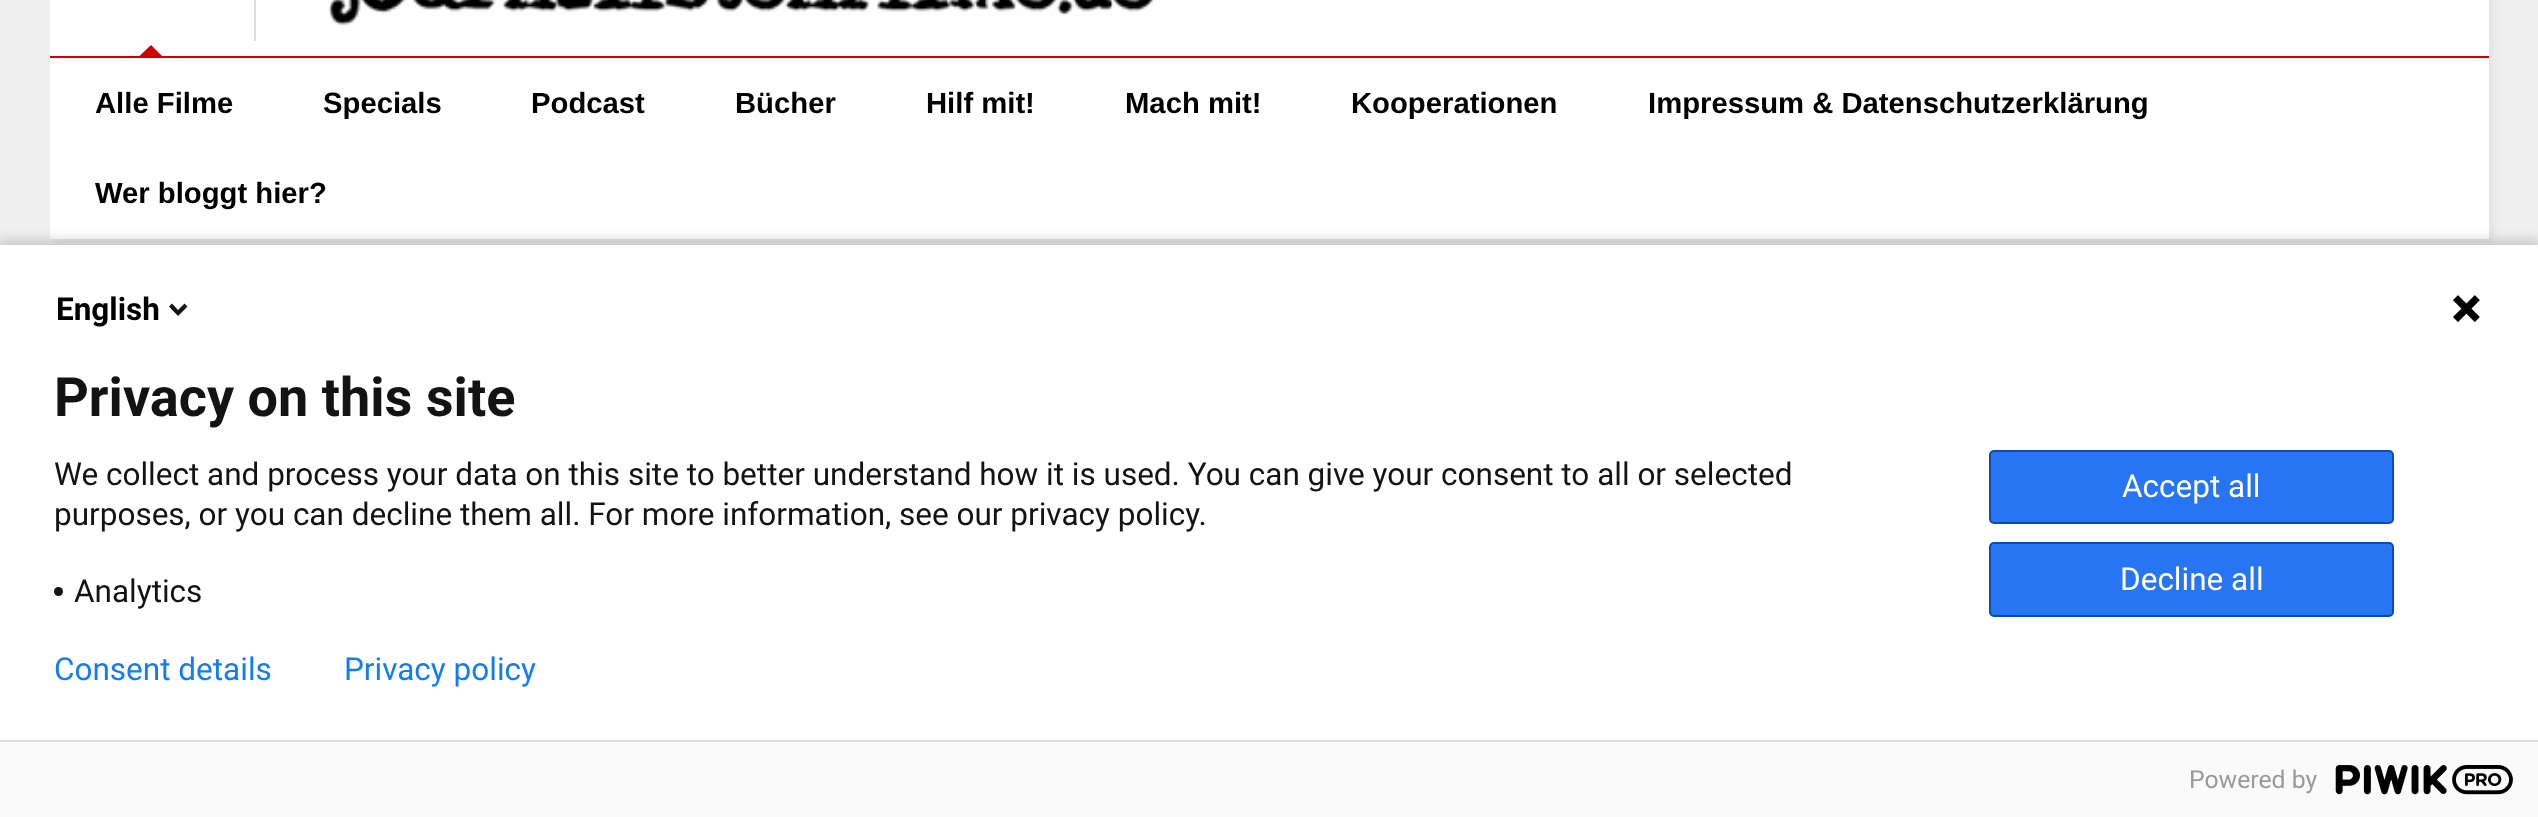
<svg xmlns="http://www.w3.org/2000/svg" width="2538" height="817">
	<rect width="100%" height="100%" fill="#EFEFEF" />
	<rect x="54" y="-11" width="2439" height="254" fill="#000000" fill-opacity="0.05" filter="blur(3.5px)" />
	<rect x="50" y="0" width="2439" height="239" fill="#FFFFFF" />
	<rect x="254" y="0" width="2" height="41" fill="#DDDDDD" />
	<image x="328" y="0" width="827" height="26" href="assets/img1.png" />
	<path d="M162 56H139.5L151 45Z" fill="#D30000" />
	<rect x="50" y="56" width="2439" height="2" fill="#D30000" />
	<g font-family="Liberation Sans" font-size="29.25" font-weight="700" fill="#000000">
		<text x="95" y="113">Alle Filme</text>
		<text x="323" y="113">Specials</text>
		<text x="531" y="113">Podcast</text>
		<text x="735" y="113">Bücher</text>
		<text x="926" y="113">Hilf mit!</text>
		<text x="1125" y="113">Mach mit!</text>
		<text x="1351" y="113">Kooperationen</text>
		<text x="1648" y="113">Impressum &amp; Datenschutzerklärung</text>
		<text x="95" y="203">Wer bloggt hier?</text>
	</g>
	<rect x="-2" y="239" width="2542" height="578" fill="#000000" fill-opacity="0.14" filter="blur(5.5px)" />
	<rect x="0" y="245" width="2538" height="495" fill="#FFFFFF" />
	<text x="56" y="320" font-family="Roboto" font-size="31.5" font-weight="700" fill="#000000">English</text>
	<path d="M178 310L184.5 303.5L187.5 306.5L178 316L169 306.5L172 303.5Z" fill="#131313" />
	<image x="2453" y="295" width="27" height="27" href="assets/img2.png" />
	<text x="54" y="416" font-family="Roboto" font-size="54" font-weight="700" fill="#131313">Privacy on this site</text>
	<g font-family="Roboto" font-size="31.5" fill="#131313">
		<text x="54" y="485">We collect and process your data on this site to better understand how it is used. You can give your consent to all or selected</text>
		<text x="54" y="525">purposes, or you can decline them all. For more information, see our privacy policy.</text>
	</g>
	<circle cx="58.5" cy="591.5" r="4.5" fill="#131313" />
	<text x="74" y="602" font-family="Roboto" font-size="31.5" fill="#131313">Analytics</text>
	<rect x="1990" y="451" width="403" height="72" rx="4" fill="#2775F2" stroke="#0B4BB3" stroke-width="2" />
	<text x="2122" y="497" font-family="Roboto" font-size="31.5" fill="#FFFFFF">Accept all</text>
	<rect x="1990" y="543" width="403" height="73" rx="4" fill="#2775F2" stroke="#0B4BB3" stroke-width="2" />
	<text x="2120" y="590" font-family="Roboto" font-size="31.5" fill="#FFFFFF">Decline all</text>
	<g font-family="Roboto" font-size="31.5" fill="#107EF1">
		<text x="54" y="680">Consent details</text>
		<text x="344" y="680">Privacy policy</text>
	</g>
	<rect x="0" y="742" width="2538" height="75" fill="#FAFAFA" />
	<rect x="0" y="740" width="2538" height="2" fill="#DDDDDD" />
	<text x="2189" y="788" font-family="Roboto" font-size="24.75" fill="#999999">Powered by</text>
	<image x="2335" y="765" width="178" height="30" href="assets/img3.png" />
</svg>
